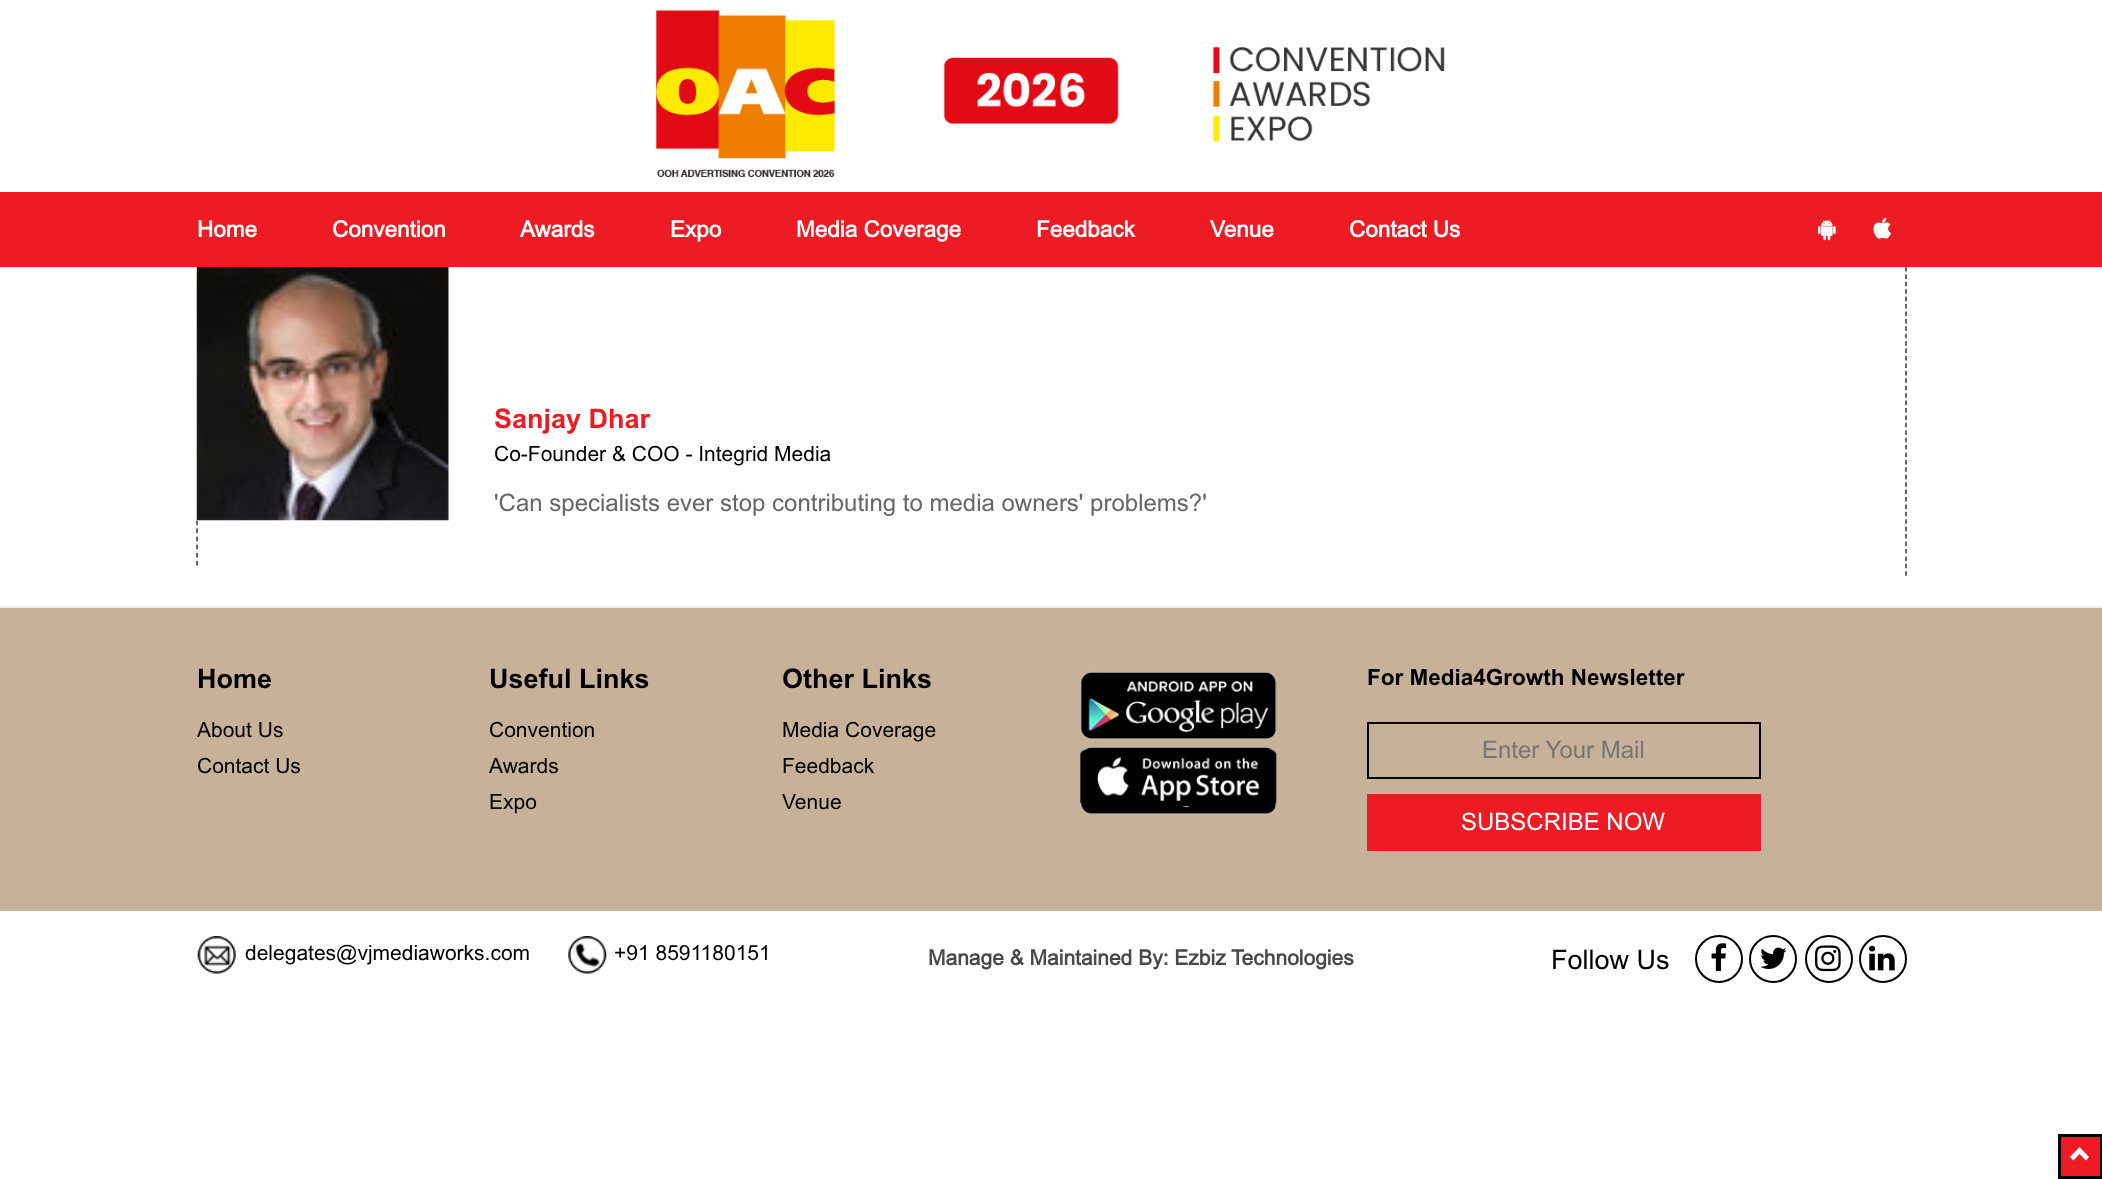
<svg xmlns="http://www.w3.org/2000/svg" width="2102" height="1179">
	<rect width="100%" height="100%" fill="#FFFFFF" />
	<image x="656" y="9" width="789" height="168" href="assets/img1.png" />
	<rect x="0" y="192" width="2102" height="75" fill="#ED1C24" />
	<g font-family="Arial" font-size="22.5" font-weight="700" fill="#FFFFFF">
		<text x="197" y="237">Home</text>
		<text x="332" y="237">Convention</text>
		<text x="520" y="237">Awards</text>
		<text x="670" y="237">Expo</text>
		<text x="796" y="237">Media Coverage</text>
		<text x="1036" y="237">Feedback</text>
		<text x="1210" y="237">Venue</text>
		<text x="1349" y="237">Contact Us</text>
	</g>
	<image x="1818" y="219" width="18" height="22" href="assets/img2.png" />
	<image x="1873" y="217" width="18" height="22" href="assets/img3.png" />
	<rect x="0" y="606" width="2102" height="2" fill="#EEEEEE" />
	<path d="M1906 267V576" fill="none" stroke="#333333" stroke-width="1.5" stroke-dasharray="4.5 2.92" />
	<path d="M197 520.5V565.5" fill="none" stroke="#333333" stroke-width="1.5" stroke-dasharray="4.5 3.6" />
	<rect x="197" y="520" width="1" height="1" fill="#FFFFFF" />
	<image x="196" y="267" width="253" height="254" href="assets/img4.png" />
	<text x="494" y="428" font-family="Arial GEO" font-size="27" font-weight="700" fill="#ED1C24">Sanjay Dhar</text>
	<text x="494" y="461" font-family="Arial" font-size="21" fill="#000000">Co-Founder &amp; COO - Integrid Media</text>
	<text x="494" y="511" font-family="Arial" font-size="24" fill="#666666">'Can specialists ever stop contributing to media owners' problems?'</text>
	<rect x="0" y="608" width="2102" height="303" fill="#C7B299" />
	<text x="197" y="688" font-family="Arial GEO" font-size="27" font-weight="700" fill="#000000">Home</text>
	<g font-family="Arial" font-size="21" fill="#000000">
		<text x="197" y="737">About Us</text>
		<text x="197" y="773">Contact Us</text>
	</g>
	<text x="489" y="688" font-family="Arial GEO" font-size="27" font-weight="700" fill="#000000">Useful Links</text>
	<g font-family="Arial" font-size="21" fill="#000000">
		<text x="489" y="737">Convention</text>
		<text x="489" y="773">Awards</text>
		<text x="489" y="809">Expo</text>
	</g>
	<text x="782" y="688" font-family="Arial GEO" font-size="27" font-weight="700" fill="#000000">Other Links</text>
	<g font-family="Arial" font-size="21" fill="#000000">
		<text x="782" y="737">Media Coverage</text>
		<text x="782" y="773">Feedback</text>
		<text x="782" y="809">Venue</text>
	</g>
	<image x="1080" y="671" width="197" height="69" href="assets/img5.png" />
	<image x="1080" y="746" width="197" height="69" href="assets/img6.png" />
	<text x="1367" y="685" font-family="Arial GEO" font-size="22.5" font-weight="700" fill="#000000">For Media4Growth Newsletter</text>
	<rect x="1368" y="723" width="392" height="55" fill="none" stroke="#000000" stroke-width="2" />
	<text x="1482" y="758" font-family="Arial" font-size="24" fill="#757575">Enter Your Mail</text>
	<rect x="1367" y="794" width="394" height="57" fill="#ED1C24" />
	<text x="1461" y="830" font-family="Arial" font-size="24" fill="#FFFFFF">SUBSCRIBE NOW</text>
	<image x="197" y="936" width="39" height="38" href="assets/img7.png" />
	<text x="245" y="960" font-family="Arial" font-size="21" fill="#000000">delegates@vjmediaworks.com</text>
	<image x="568" y="936" width="39" height="38" href="assets/img8.png" />
	<text x="614" y="960" font-family="Arial" font-size="21" fill="#000000">+91 8591180151</text>
	<text x="928" y="965" font-family="Arial" font-size="21" font-weight="700" fill="#4A4949">Manage &amp; Maintained By: Ezbiz Technologies</text>
	<text x="1551" y="969" font-family="Arial" font-size="27" fill="#000000">Follow Us</text>
	<circle cx="1719" cy="959" r="23" fill="none" stroke="#000000" stroke-width="2" />
	<image x="1711" y="943" width="16" height="29" href="assets/img9.png" />
	<circle cx="1773" cy="959" r="23" fill="none" stroke="#000000" stroke-width="2" />
	<image x="1760" y="947" width="27" height="22" href="assets/img10.png" />
	<circle cx="1829" cy="959" r="23" fill="none" stroke="#000000" stroke-width="2" />
	<image x="1815" y="945" width="26" height="27" href="assets/img11.png" />
	<circle cx="1883" cy="959" r="23" fill="none" stroke="#000000" stroke-width="2" />
	<image x="1869" y="945" width="26" height="26" href="assets/img12.png" />
	<rect x="2059.5" y="1135.5" width="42" height="42" fill="#ED1C24" stroke="#000000" stroke-width="3" />
	<path d="M2089 1157L2086 1160.5L2079.5 1154L2073.5 1160.5L2070 1157L2079.5 1147Z" fill="#FFFFFF" />
</svg>
